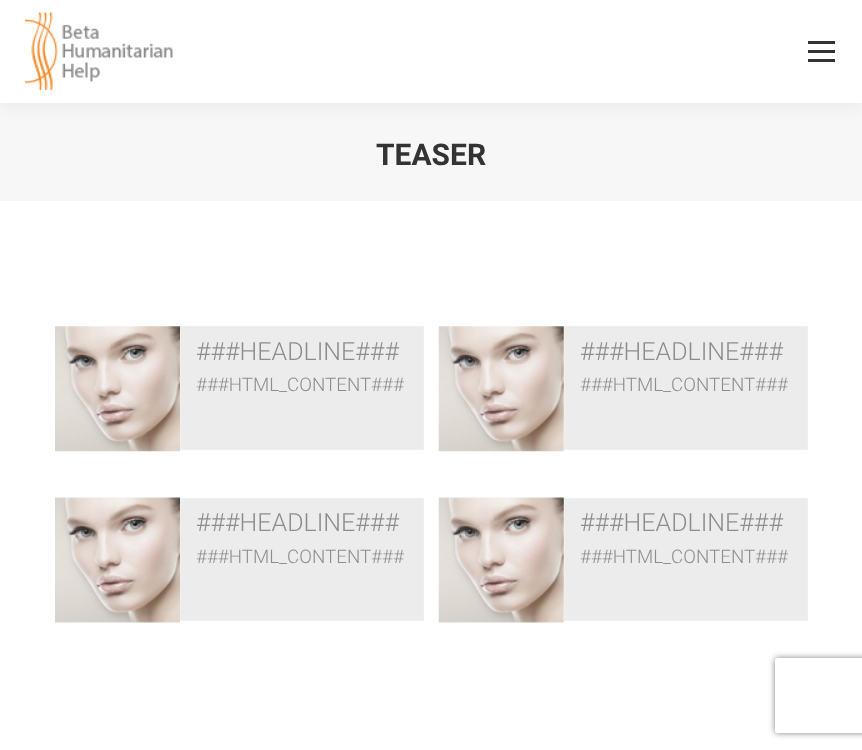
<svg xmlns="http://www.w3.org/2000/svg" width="862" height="750">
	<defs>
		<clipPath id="clip1"><path d="M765 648H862V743H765ZM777.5 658H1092.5C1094 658 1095 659 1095 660.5V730.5C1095 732 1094 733 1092.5 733H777.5C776 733 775 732 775 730.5V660.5C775 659 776 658 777.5 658Z" clip-rule="evenodd" /></clipPath>
	</defs>
	<rect width="100%" height="100%" fill="#FFFFFF" />
	<rect x="0" y="103" width="862" height="98" fill="#F7F7F7" />
	<rect x="-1" y="-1" width="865" height="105" fill="#000000" fill-opacity="0.07" filter="blur(9.5px)" />
	<rect x="0" y="0" width="862" height="103" fill="#FFFFFF" />
	<image x="25" y="12" width="148" height="78" href="assets/img1.png" />
	<rect x="808" y="41" width="27" height="3" fill="#333333" />
	<rect x="808" y="50" width="27" height="3" fill="#333333" />
	<rect x="808" y="59" width="27" height="3" fill="#333333" />
	<text x="376" y="165" font-family="Roboto" font-size="30" font-weight="700" fill="#333333">TEASER</text>
	<image x="55" y="326" width="125" height="126" href="assets/img2.png" />
	<rect x="180.5" y="326.5" width="243" height="123" fill="#ECECEC" stroke="#EFEFEF" />
	<text x="196" y="360" font-family="Roboto" font-size="25" font-weight="300" fill="#8D8D8D">###HEADLINE###</text>
	<text x="196" y="391" font-family="Roboto" font-size="18.75" font-weight="300" fill="#8D8D8D">###HTML_CONTENT###</text>
	<image x="438" y="326" width="126" height="126" href="assets/img3.png" />
	<rect x="564.5" y="326.5" width="243" height="123" fill="#ECECEC" stroke="#EFEFEF" />
	<text x="580" y="360" font-family="Roboto" font-size="25" font-weight="300" fill="#8D8D8D">###HEADLINE###</text>
	<text x="580" y="391" font-family="Roboto" font-size="18.75" font-weight="300" fill="#8D8D8D">###HTML_CONTENT###</text>
	<image x="55" y="497" width="125" height="126" href="assets/img4.png" />
	<rect x="180.5" y="498.5" width="243" height="122" fill="#ECECEC" stroke="#EFEFEF" />
	<text x="196" y="531" font-family="Roboto" font-size="25" font-weight="300" fill="#8D8D8D">###HEADLINE###</text>
	<text x="196" y="563" font-family="Roboto" font-size="18.75" font-weight="300" fill="#8D8D8D">###HTML_CONTENT###</text>
	<image x="438" y="497" width="126" height="126" href="assets/img5.png" />
	<rect x="564.5" y="498.5" width="243" height="122" fill="#ECECEC" stroke="#EFEFEF" />
	<text x="580" y="531" font-family="Roboto" font-size="25" font-weight="300" fill="#8D8D8D">###HEADLINE###</text>
	<text x="580" y="563" font-family="Roboto" font-size="18.75" font-weight="300" fill="#8D8D8D">###HTML_CONTENT###</text>
	<g clip-path="url(#clip1)">
		<rect x="775" y="658" width="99" height="75" rx="2.5" fill="#808080" filter="blur(3px)" />
	</g>
</svg>
